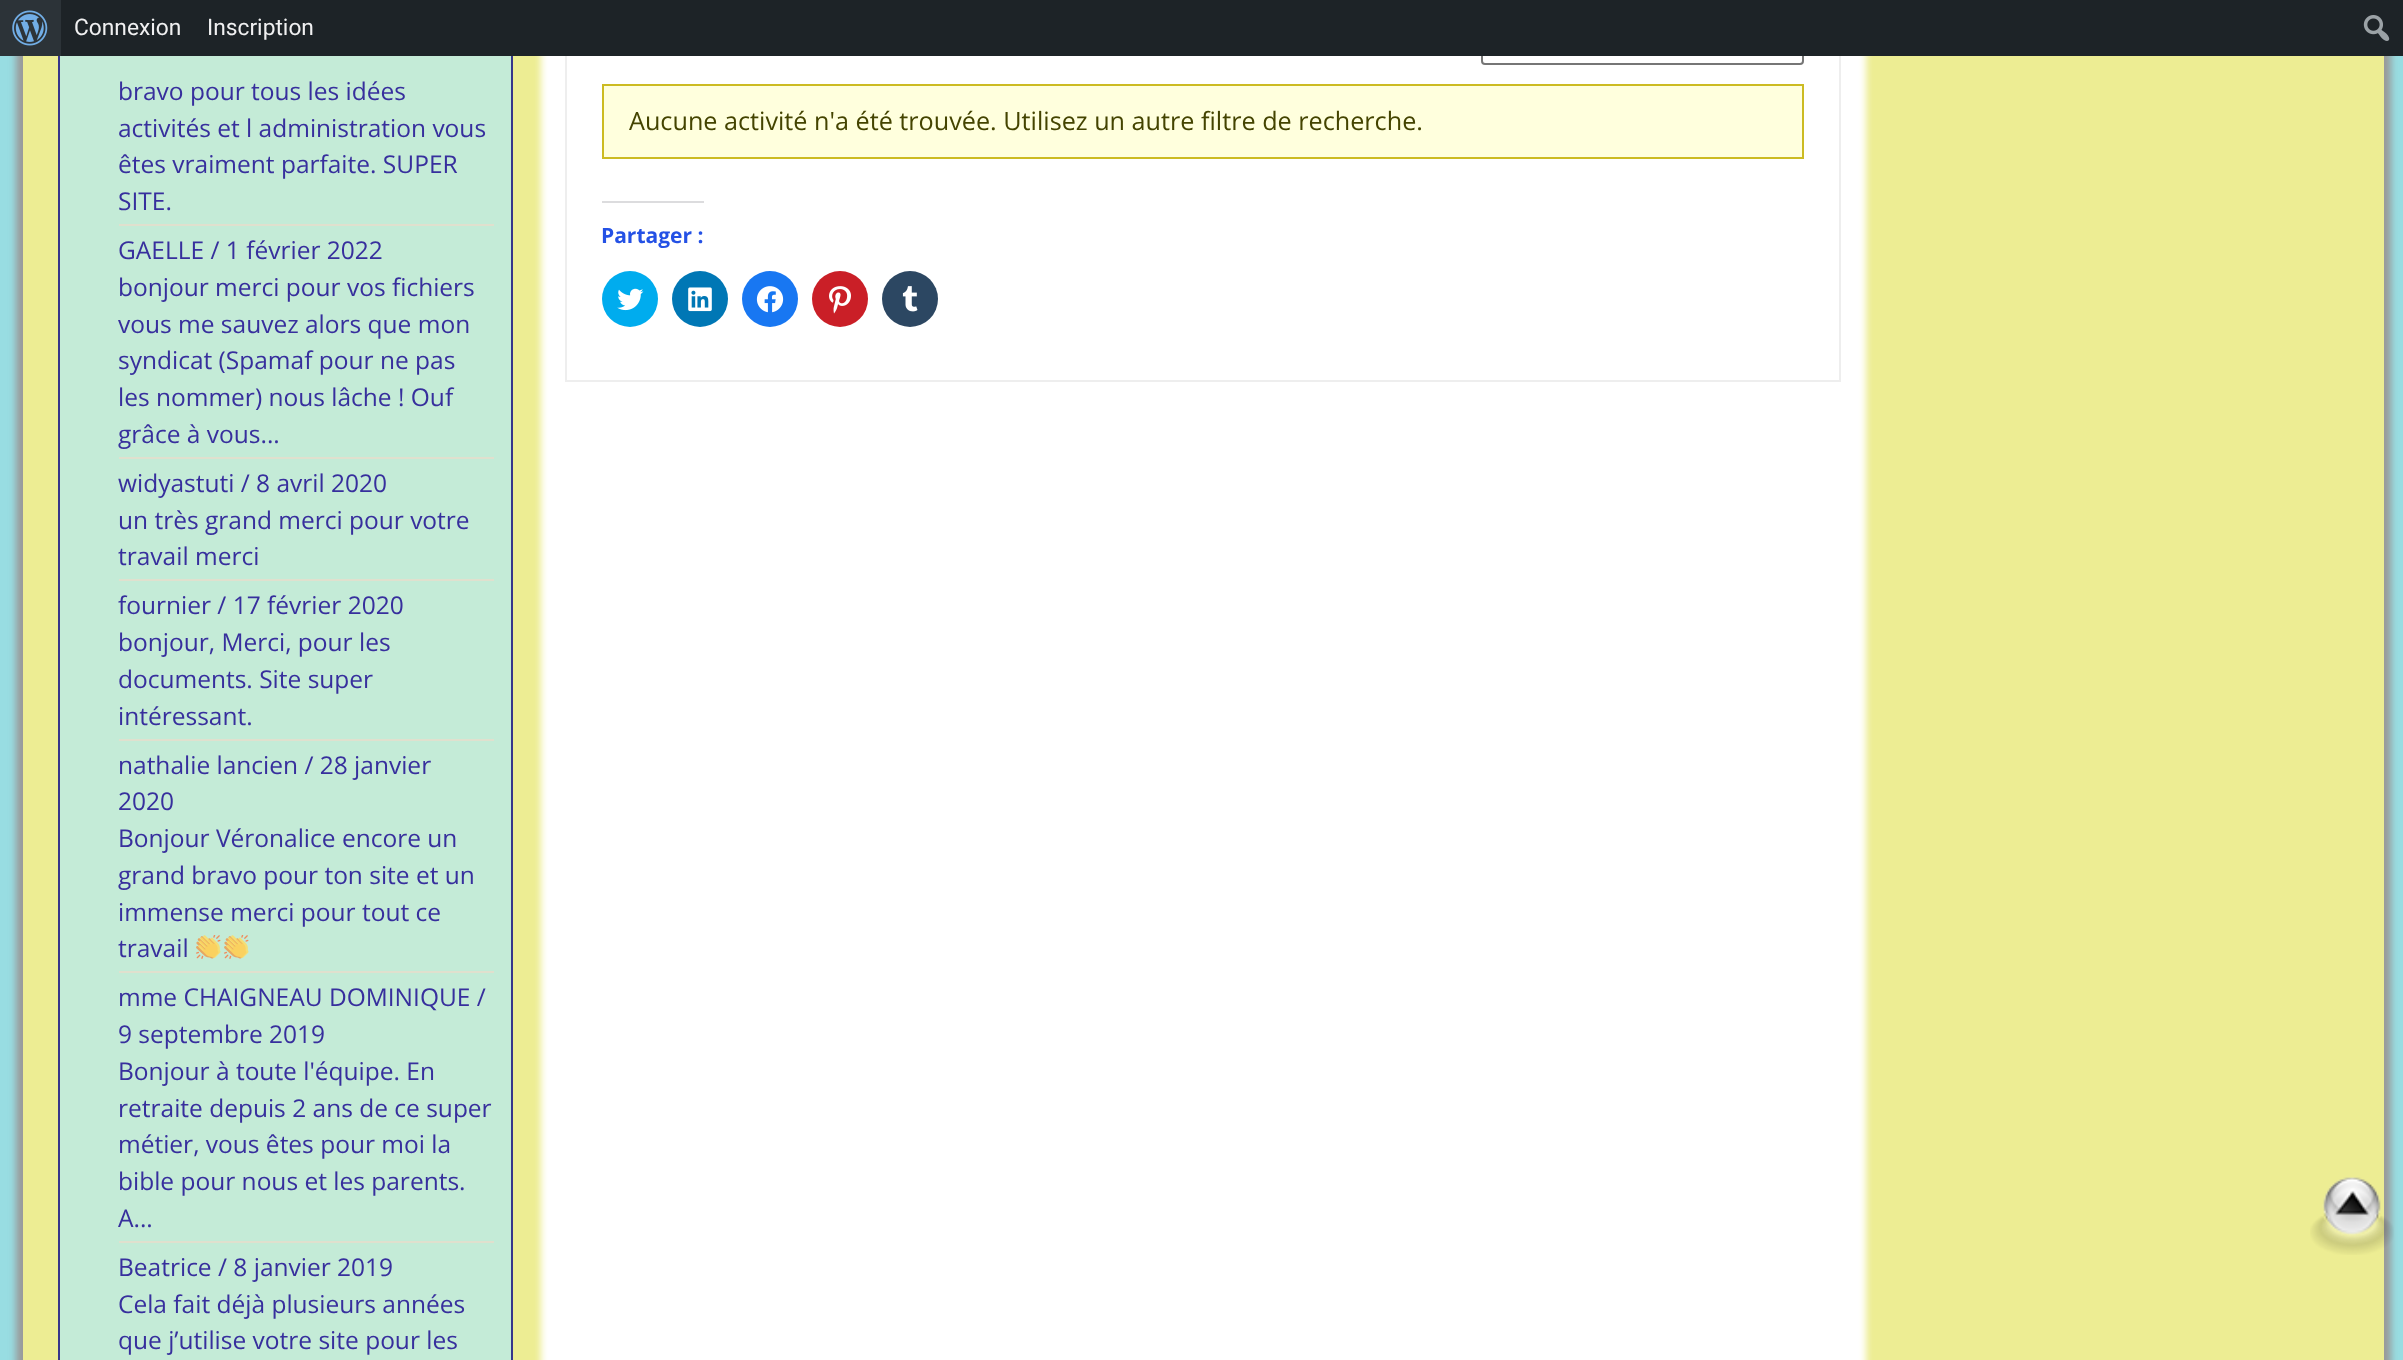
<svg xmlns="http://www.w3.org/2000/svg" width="2403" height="1360">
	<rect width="100%" height="100%" fill="#98DDE2" />
	<rect x="16" y="-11" width="2375" height="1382" fill="#999999" filter="blur(3.5px)" />
	<rect x="23" y="56" width="2361" height="1304" fill="#EDED93" />
	<rect x="60" y="56" width="451" height="1304" fill="#C4EBD7" />
	<rect x="59" y="-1" width="453" height="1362" fill="none" stroke="#37368B" stroke-width="2" />
	<rect x="541" y="-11" width="1325" height="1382" fill="#FFFFFF" filter="blur(3.5px)" />
	<rect x="566" y="-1" width="1274" height="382" fill="none" stroke="#EEEEEE" stroke-width="2" />
	<rect x="1482" y="29" width="321" height="35" rx="3" fill="none" stroke="#767676" stroke-width="2" />
	<rect x="61" y="0" width="2342" height="56" fill="#1D2327" />
	<rect x="0" y="0" width="61" height="56" fill="#2C3338" />
	<image x="12" y="10" width="36" height="36" href="assets/img1.png" />
	<g font-family="Roboto" font-size="22.75" fill="#F0F0F1">
		<text x="74" y="35">Connexion</text>
		<text x="207" y="35">Inscription</text>
	</g>
	<image x="2363" y="15" width="27" height="26" href="assets/img2.png" />
	<rect x="119" y="224" width="375" height="2" fill="#E0E0CE" />
	<g font-family="Open Sans" font-size="24.5" fill="#372F9D">
		<text x="118" y="100">bravo pour tous les idées</text>
		<text x="118" y="137">activités et l administration vous</text>
		<text x="118" y="173">êtes vraiment parfaite. SUPER</text>
		<text x="118" y="210">SITE.</text>
	</g>
	<rect x="119" y="457" width="375" height="2" fill="#E0E0CE" />
	<g font-family="Open Sans" font-size="24.5" fill="#372F9D">
		<text x="118" y="259">GAELLE / 1 février 2022</text>
		<text x="118" y="296">bonjour merci pour vos fichiers</text>
		<text x="118" y="333">vous me sauvez alors que mon</text>
		<text x="118" y="369">syndicat (Spamaf pour ne pas</text>
		<text x="118" y="406">les nommer) nous lâche ! Ouf</text>
		<text x="118" y="443">grâce à vous...</text>
	</g>
	<rect x="119" y="579" width="375" height="2" fill="#E0E0CE" />
	<g font-family="Open Sans" font-size="24.5" fill="#372F9D">
		<text x="118" y="492">widyastuti / 8 avril 2020</text>
		<text x="118" y="529">un très grand merci pour votre</text>
		<text x="118" y="565">travail merci</text>
	</g>
	<rect x="119" y="739" width="375" height="2" fill="#E0E0CE" />
	<g font-family="Open Sans" font-size="24.5" fill="#372F9D">
		<text x="118" y="614">fournier / 17 février 2020</text>
		<text x="118" y="651">bonjour, Merci, pour les</text>
		<text x="118" y="688">documents. Site super</text>
		<text x="118" y="725">intéressant.</text>
	</g>
	<rect x="119" y="971" width="375" height="2" fill="#E0E0CE" />
	<g font-family="Open Sans" font-size="24.5" fill="#372F9D">
		<text x="118" y="774">nathalie lancien / 28 janvier</text>
		<text x="118" y="810">2020</text>
		<text x="118" y="847">Bonjour Véronalice encore un</text>
		<text x="118" y="884">grand bravo pour ton site et un</text>
		<text x="118" y="921">immense merci pour tout ce</text>
		<text x="118" y="957">travail</text>
	</g>
	<image x="196" y="935" width="25" height="24" href="assets/img3.png" />
	<image x="224" y="935" width="25" height="24" href="assets/img3.png" />
	<rect x="119" y="1241" width="375" height="2" fill="#E0E0CE" />
	<g font-family="Open Sans" font-size="24.5" fill="#372F9D">
		<text x="118" y="1006">mme CHAIGNEAU DOMINIQUE /</text>
		<text x="118" y="1043">9 septembre 2019</text>
		<text x="118" y="1080">Bonjour à toute l'équipe. En</text>
		<text x="118" y="1117">retraite depuis 2 ans de ce super</text>
		<text x="118" y="1153">métier, vous êtes pour moi la</text>
		<text x="118" y="1190">bible pour nous et les parents.</text>
		<text x="118" y="1227">A...</text>
		<text x="118" y="1276">Beatrice / 8 janvier 2019</text>
		<text x="118" y="1313">Cela fait déjà plusieurs années</text>
		<text x="118" y="1349">que j’utilise votre site pour les</text>
	</g>
	<rect x="603" y="85" width="1200" height="73" fill="#FFFFDD" stroke="#CCBB22" stroke-width="2" />
	<text x="629" y="130" font-family="Open Sans" font-size="25.2" fill="#444400">Aucune activité n'a été trouvée. Utilisez un autre filtre de recherche.</text>
	<rect x="602" y="201" width="102" height="2" fill="#DCDCDE" />
	<text x="601" y="243" font-family="Open Sans" font-size="21" font-weight="700" fill="#2451E5">Partager :</text>
	<circle cx="630" cy="299" r="28" fill="#00ACEE" />
	<image x="617" y="288" width="27" height="23" href="assets/img4.png" />
	<circle cx="700" cy="299" r="28" fill="#0077B5" />
	<image x="688" y="287" width="24" height="25" href="assets/img5.png" />
	<circle cx="770" cy="299" r="28" fill="#1877F2" />
	<image x="756" y="286" width="28" height="27" href="assets/img6.png" />
	<circle cx="840" cy="299" r="28" fill="#CA1F27" />
	<image x="829" y="286" width="22" height="28" href="assets/img7.png" />
	<circle cx="910" cy="299" r="28" fill="#2C4762" />
	<image x="902" y="286" width="16" height="26" href="assets/img8.png" />
	<image x="2310" y="1177" width="84" height="78" href="assets/img9.png" />
</svg>
